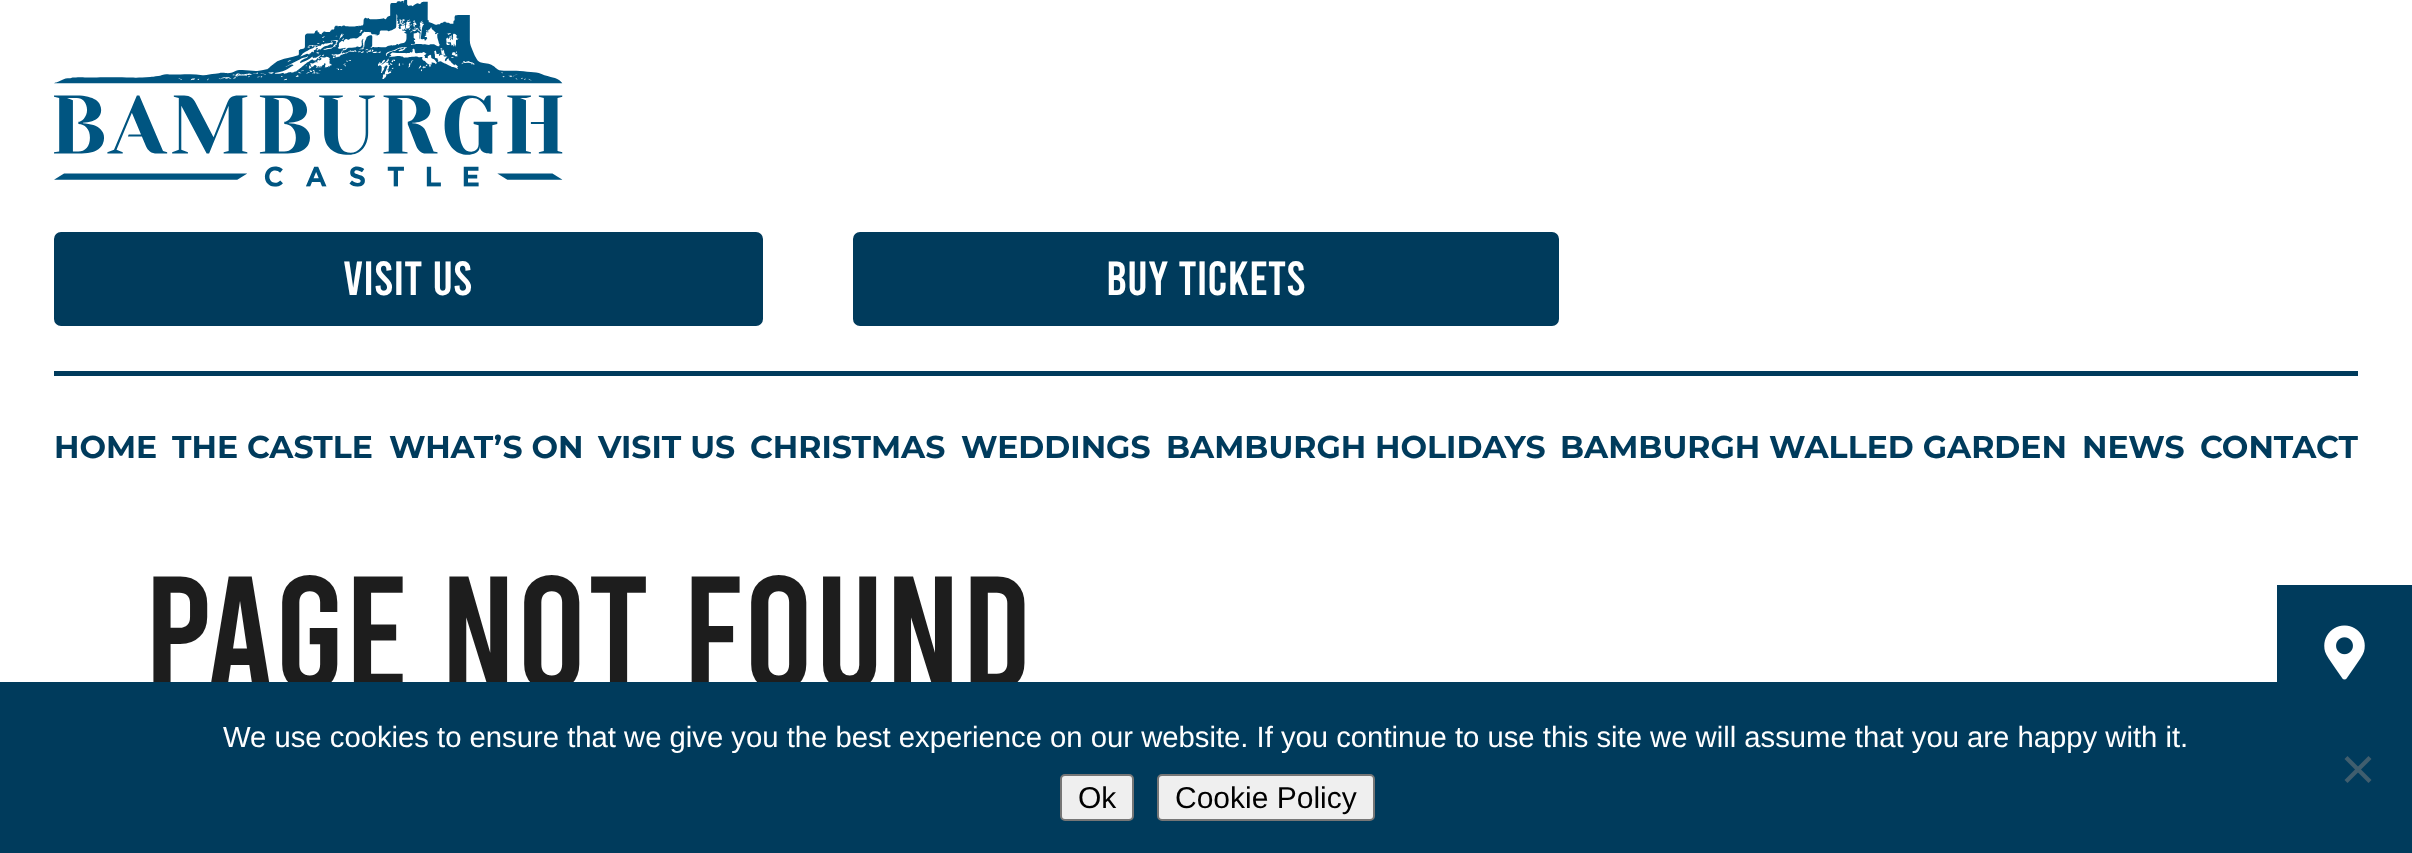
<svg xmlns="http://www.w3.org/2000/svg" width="2412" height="853">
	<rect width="100%" height="100%" fill="#FFFFFF" />
	<image x="54" y="0" width="509" height="187" href="assets/img1.png" />
	<rect x="56.5" y="234.5" width="704" height="89" rx="4.5" fill="#003B5C" stroke="#003B5C" stroke-width="5" />
	<text x="343" y="295" font-family="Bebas" font-size="48" fill="#FFFFFF">VISIT US</text>
	<rect x="855.5" y="234.5" width="701" height="89" rx="4.5" fill="#003B5C" stroke="#003B5C" stroke-width="5" />
	<text x="1106" y="295" font-family="Bebas" font-size="48" fill="#FFFFFF">BUY TICKETS</text>
	<rect x="54" y="371" width="2304" height="5" fill="#003B5C" />
	<g font-family="Montserrat" font-size="31.5" font-weight="700" fill="#003B5C">
		<text x="54" y="458">HOME</text>
		<text x="172" y="458">THE CASTLE</text>
		<text x="389" y="458">WHAT’S ON</text>
		<text x="598" y="458">VISIT US</text>
		<text x="750" y="458">CHRISTMAS</text>
		<text x="961" y="458">WEDDINGS</text>
		<text x="1166" y="458">BAMBURGH HOLIDAYS</text>
		<text x="1560" y="458">BAMBURGH WALLED GARDEN</text>
		<text x="2082" y="458">NEWS</text>
		<text x="2200" y="458">CONTACT</text>
	</g>
	<text x="144" y="690" font-family="Bebas" font-size="162" fill="#1D1D1D">PAGE NOT FOUND</text>
	<rect x="2277" y="585" width="135" height="97" fill="#003B5C" />
	<image x="2324" y="625" width="41" height="55" href="assets/img2.png" />
	<rect x="0" y="682" width="2412" height="171" fill="#003B5C" />
	<text x="223" y="747" font-family="Liberation Sans" font-size="29.25" fill="#FFFFFF">We use cookies to ensure that we give you the best experience on our website. If you continue to use this site we will assume that you are happy with it.</text>
	<path d="M2368.5 756L2371.5 759L2347.5 783L2344.5 780Z" fill="#405E6E" />
	<path d="M2344.5 759L2347.5 756L2371.5 780L2368.5 783Z" fill="#405E6E" />
	<rect x="1061" y="775" width="72" height="45" rx="4" fill="#EFEFEF" stroke="#767676" stroke-width="2" />
	<text x="1078" y="808" font-family="Liberation Sans" font-size="30" fill="#000000">Ok</text>
	<rect x="1158" y="775" width="216" height="45" rx="4" fill="#EFEFEF" stroke="#767676" stroke-width="2" />
	<text x="1175" y="808" font-family="Liberation Sans" font-size="30" fill="#000000">Cookie Policy</text>
</svg>
